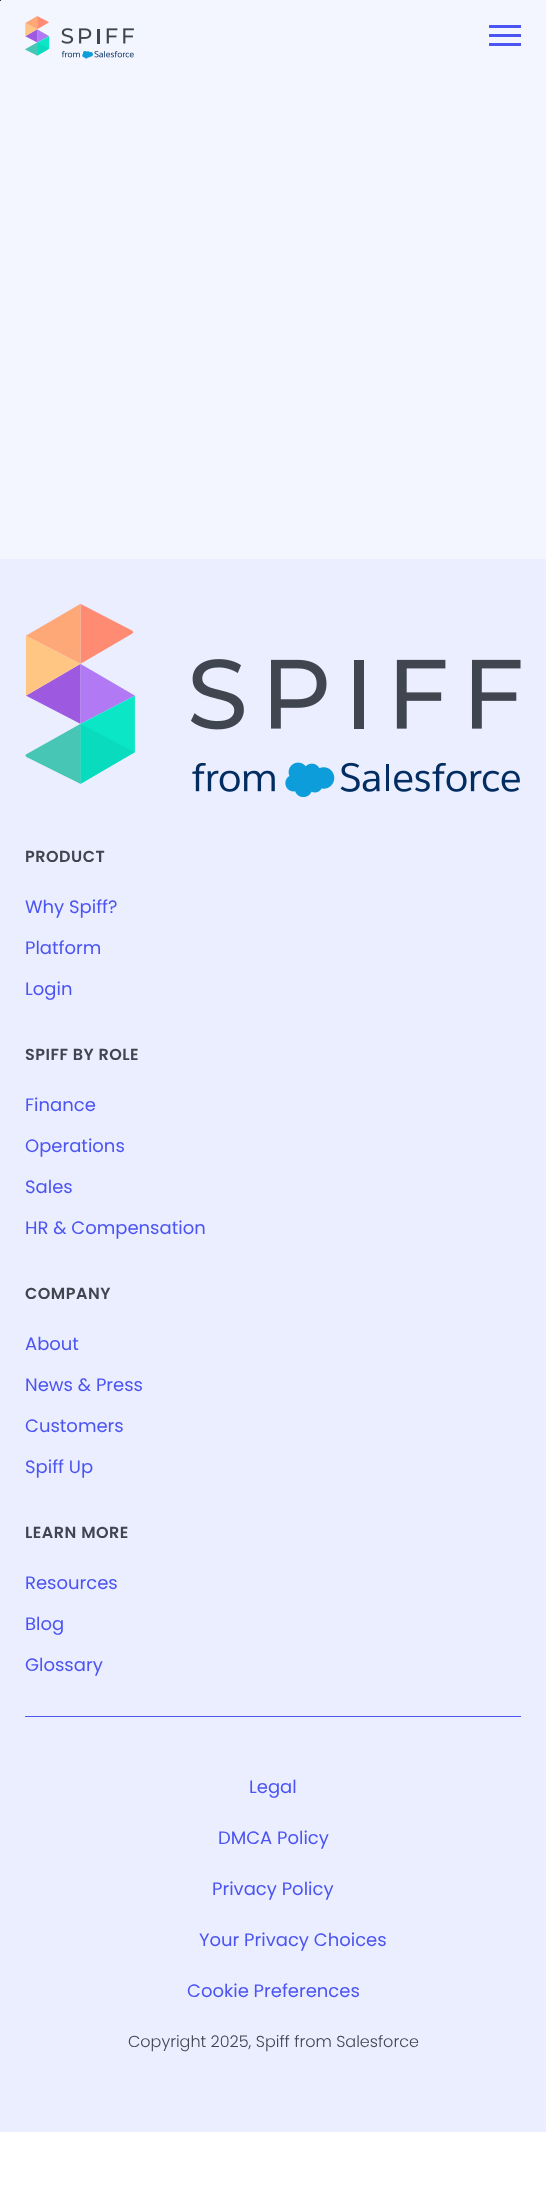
<svg xmlns="http://www.w3.org/2000/svg" width="546" height="2185">
	<rect width="100%" height="100%" fill="#FFFFFF" />
	<rect x="0" y="0" width="546" height="559" fill="#F4F6FF" />
	<rect x="0" y="0" width="1" height="1" fill="#333333" />
	<image x="25" y="16" width="109" height="43" href="assets/img1.png" />
	<rect x="489" y="25" width="32" height="3" fill="#4C54F1" />
	<rect x="489" y="34" width="32" height="3" fill="#4C54F1" />
	<rect x="489" y="43" width="32" height="3" fill="#4C54F1" />
	<rect x="0" y="559" width="546" height="1573" fill="#EAEEFF" />
	<image x="25" y="603" width="496" height="194" href="assets/img2.png" />
	<text x="25" y="862" font-family="Poppins" font-size="16" font-weight="600" letter-spacing="0.5" fill="#3F464F">PRODUCT</text>
	<g font-family="Poppins" font-size="18" fill="#4C54F1">
		<text x="25" y="913">Why Spiff?</text>
		<text x="25" y="954">Platform</text>
		<text x="25" y="995">Login</text>
	</g>
	<text x="25" y="1060" font-family="Poppins" font-size="16" font-weight="600" letter-spacing="0.5" fill="#3F464F">SPIFF BY ROLE</text>
	<g font-family="Poppins" font-size="18" fill="#4C54F1">
		<text x="25" y="1111">Finance</text>
		<text x="25" y="1152">Operations</text>
		<text x="25" y="1193">Sales</text>
		<text x="25" y="1234">HR &amp; Compensation</text>
	</g>
	<text x="25" y="1299" font-family="Poppins" font-size="16" font-weight="600" letter-spacing="0.5" fill="#3F464F">COMPANY</text>
	<g font-family="Poppins" font-size="18" fill="#4C54F1">
		<text x="25" y="1350">About</text>
		<text x="25" y="1391">News &amp; Press</text>
		<text x="25" y="1432">Customers</text>
		<text x="25" y="1473">Spiff Up</text>
	</g>
	<text x="25" y="1538" font-family="Poppins" font-size="16" font-weight="600" letter-spacing="0.5" fill="#3F464F">LEARN MORE</text>
	<g font-family="Poppins" font-size="18" fill="#4C54F1">
		<text x="25" y="1589">Resources</text>
		<text x="25" y="1630">Blog</text>
		<text x="25" y="1671">Glossary</text>
	</g>
	<rect x="25" y="1716" width="496" height="1" fill="#4C54F1" />
	<g font-family="Poppins" font-size="18" fill="#4C54F1">
		<text x="249" y="1793">Legal</text>
		<text x="218" y="1844">DMCA Policy</text>
		<text x="212" y="1895">Privacy Policy</text>
		<text x="199" y="1946">Your Privacy Choices</text>
		<text x="187" y="1997">Cookie Preferences</text>
	</g>
	<text x="128" y="2047" font-family="Poppins" font-size="16" font-weight="300" fill="#3F464F">Copyright 2025, Spiff from Salesforce</text>
</svg>
